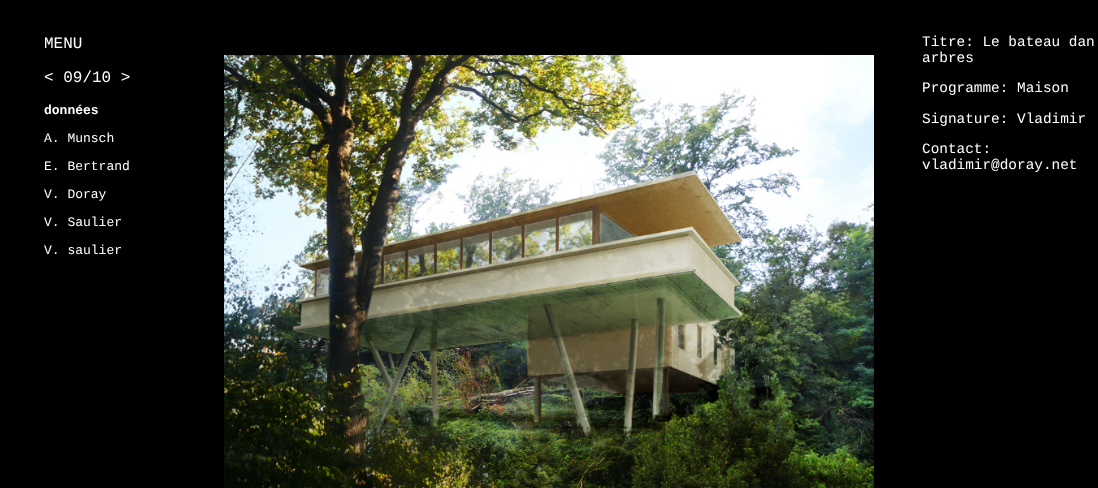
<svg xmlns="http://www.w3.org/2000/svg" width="1098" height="488">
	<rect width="100%" height="100%" fill="#000000" />
	<g font-family="Liberation Mono" font-size="16" fill="#FFFFFF">
		<text x="44" y="48">MENU</text>
		<text x="44" y="82">&lt; 09/10 &gt;</text>
	</g>
	<text x="44" y="114" font-family="Liberation Mono" font-size="13" font-weight="700" fill="#FFFFFF">données</text>
	<g font-family="Liberation Mono" font-size="13" fill="#FFFFFF">
		<text x="44" y="142">A. Munsch</text>
		<text x="44" y="170">E. Bertrand</text>
		<text x="44" y="198">V. Doray</text>
		<text x="44" y="226">V. Saulier</text>
		<text x="44" y="254">V. saulier</text>
	</g>
	<image x="224" y="55" width="650" height="433" href="assets/img1.png" />
	<g font-family="Liberation Mono" font-size="14.4" fill="#FFFFFF">
		<text x="922" y="46">Titre: Le bateau dan</text>
		<text x="922" y="62">arbres</text>
		<text x="922" y="92">Programme: Maison</text>
		<text x="922" y="123">Signature: Vladimir</text>
		<text x="922" y="153">Contact:</text>
		<text x="922" y="169">vladimir@doray.net</text>
	</g>
</svg>
